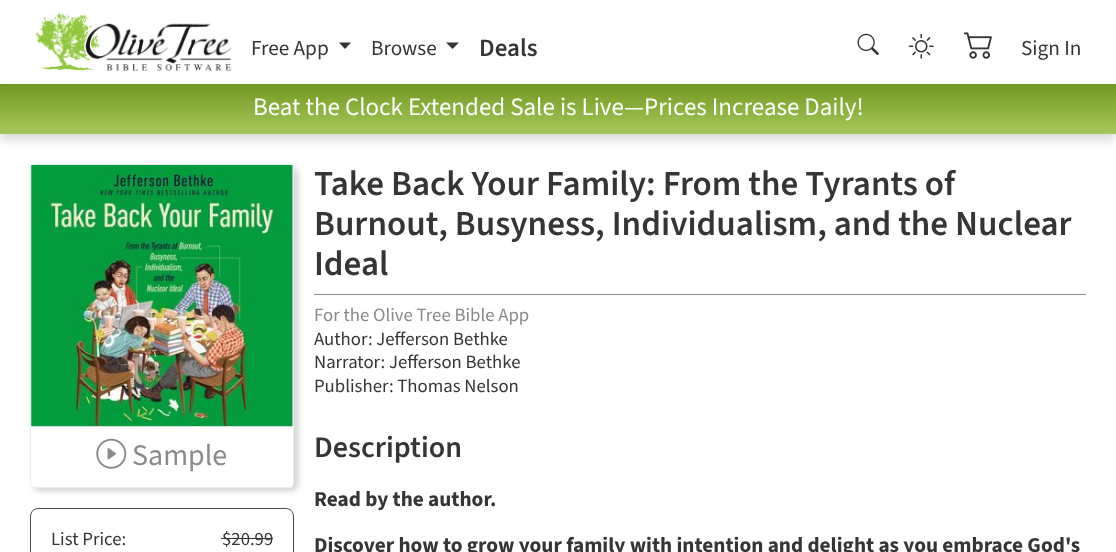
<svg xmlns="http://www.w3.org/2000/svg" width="1116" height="552">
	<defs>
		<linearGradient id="g1" gradientUnits="userSpaceOnUse" x1="558" y1="84" x2="558" y2="134"><stop offset="0" stop-color="#719920" /><stop offset="1" stop-color="#A6C85B" /></linearGradient>
		<clipPath id="clip1"><path d="M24 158H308V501H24ZM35 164H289C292 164 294 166 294 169V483C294 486 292 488 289 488H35C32 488 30 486 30 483V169C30 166 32 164 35 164Z" clip-rule="evenodd" /></clipPath>
	</defs>
	<rect width="100%" height="100%" fill="#FFFFFF" />
	<image x="35" y="12" width="197" height="59" href="assets/img1.png" />
	<text x="251" y="55" font-family="'Source Sans 3'" font-size="21.25" fill="#353535">Free App</text>
	<path d="M339 42.5H351L345 49Z" fill="#353535" />
	<text x="371" y="55" font-family="'Source Sans 3'" font-size="21.25" fill="#353535">Browse</text>
	<path d="M446 42.5H459L452.5 49Z" fill="#353535" />
	<text x="479" y="56" font-family="'Source Sans 3'" font-size="25" font-weight="600" fill="#353535">Deals</text>
	<image x="857" y="33" width="22" height="22" href="assets/img2.png" />
	<image x="908" y="33" width="26" height="26" href="assets/img3.png" />
	<image x="963" y="32" width="29" height="27" href="assets/img4.png" />
	<text x="1021" y="55" font-family="'Source Sans 3'" font-size="21.25" fill="#353535">Sign In</text>
	<rect x="0" y="91" width="1116" height="50" fill="#000000" fill-opacity="0.13" filter="blur(4px)" />
	<rect x="0" y="84" width="1116" height="50" fill="url(#g1)" />
	<text x="253" y="115" font-family="'Source Sans 3'" font-size="25" fill="#FFFFFF">Beat the Clock Extended Sale is Live—Prices Increase Daily!</text>
	<g clip-path="url(#clip1)">
		<rect x="34" y="168" width="264" height="323" rx="5" fill="#D3D3D3" filter="blur(3px)" />
	</g>
	<rect x="30.5" y="164.5" width="263" height="323" rx="4.5" fill="none" stroke="#000000" stroke-opacity="0.08" />
	<image x="31" y="165" width="262" height="262" href="assets/img5.png" />
	<image x="96" y="438" width="31" height="31" href="assets/img6.png" />
	<text x="132" y="465" font-family="'Source Sans 3'" font-size="30" fill="#8A8A8A">Sample</text>
	<rect x="30.5" y="508.5" width="263" height="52" rx="7.5" fill="none" stroke="#4B4B4B" />
	<g font-family="'Source Sans 3'" font-size="18.75" fill="#353535">
		<text x="51" y="545">List Price:</text>
		<text x="222" y="545">$20.99</text>
	</g>
	<rect x="221" y="538" width="52" height="1" fill="#353535" />
	<g font-family="'Source Sans 3'" font-size="35" font-weight="600" fill="#353535">
		<text x="314" y="195">Take Back Your Family: From the Tyrants of</text>
		<text x="314" y="235">Burnout, Busyness, Individualism, and the Nuclear</text>
		<text x="314" y="275">Ideal</text>
	</g>
	<rect x="314" y="294" width="772" height="1" fill="#8A8A8A" />
	<text x="314" y="321" font-family="'Source Sans 3'" font-size="18.75" fill="#8A8A8A">For the Olive Tree Bible App</text>
	<g font-family="'Source Sans 3'" font-size="18.75" fill="#353535">
		<text x="314" y="345">Author: Jefferson Bethke</text>
		<text x="314" y="368">Narrator: Jefferson Bethke</text>
		<text x="314" y="392">Publisher: Thomas Nelson</text>
	</g>
	<text x="314" y="457" font-family="'Source Sans 3'" font-size="30" font-weight="600" fill="#353535">Description</text>
	<g font-family="'Source Sans 3'" font-size="21.25" font-weight="700" fill="#353535">
		<text x="314" y="506">Read by the author.</text>
		<text x="314" y="552">Discover how to grow your family with intention and delight as you embrace God's</text>
	</g>
</svg>
